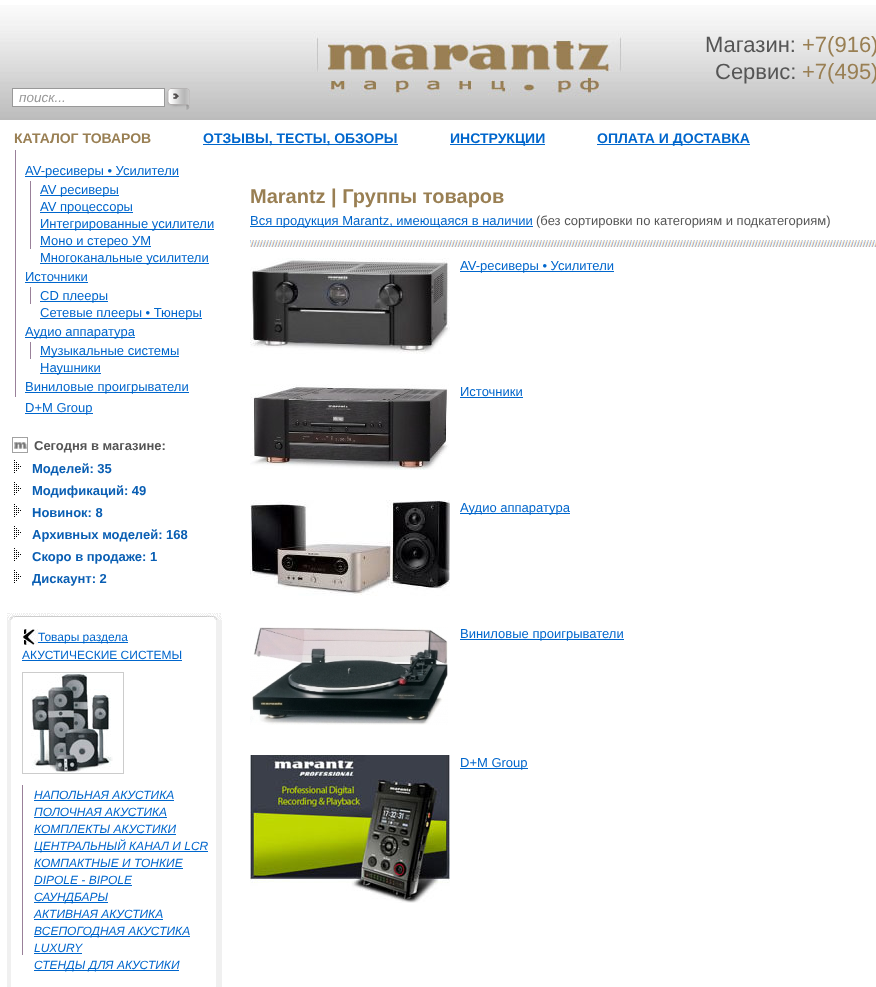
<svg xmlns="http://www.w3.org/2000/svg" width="876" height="987">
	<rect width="100%" height="100%" fill="#FFFFFF" />
	<image x="0" y="5" width="876" height="115" href="assets/img1.png" />
	<text x="705" y="52" font-family="Liberation Sans" font-size="22" fill="#555555">Магазин:</text>
	<text x="802" y="52" font-family="Liberation Sans" font-size="22" fill="#997F53">+7(916)</text>
	<text x="715" y="79" font-family="Liberation Sans" font-size="22" fill="#555555">Сервис:</text>
	<text x="802" y="79" font-family="Liberation Sans" font-size="22" fill="#997F53">+7(495)</text>
	<rect x="12.5" y="88.5" width="152" height="18" fill="#FFFFFF" stroke="#999999" />
	<text x="19" y="102" font-family="Liberation Sans" font-size="13.5" font-style="italic" fill="#999999">поиск...</text>
	<image x="166" y="88" width="24" height="22" href="assets/img2.png" />
	<text x="14" y="143" font-family="Liberation Sans" font-size="14" font-weight="700" fill="#997F53">КАТАЛОГ ТОВАРОВ</text>
	<rect x="203" y="144" width="195" height="1" fill="#0066CC" />
	<text x="203" y="143" font-family="Liberation Sans" font-size="14" font-weight="700" fill="#0066CC">ОТЗЫВЫ, ТЕСТЫ, ОБЗОРЫ</text>
	<rect x="450" y="144" width="95" height="1" fill="#0066CC" />
	<text x="450" y="143" font-family="Liberation Sans" font-size="14" font-weight="700" fill="#0066CC">ИНСТРУКЦИИ</text>
	<rect x="597" y="144" width="153" height="1" fill="#0066CC" />
	<text x="597" y="143" font-family="Liberation Sans" font-size="14" font-weight="700" fill="#0066CC">ОПЛАТА И ДОСТАВКА</text>
	<rect x="15" y="150" width="1" height="247" fill="#998099" />
	<rect x="25" y="176" width="154" height="1" fill="#0066CC" />
	<text x="25" y="175" font-family="Liberation Sans" font-size="13" fill="#0066CC">AV-ресиверы • Усилители</text>
	<rect x="30" y="181" width="1" height="68" fill="#998099" />
	<rect x="40" y="195" width="79" height="1" fill="#0066CC" />
	<text x="40" y="194" font-family="Liberation Sans" font-size="13" fill="#0066CC">AV ресиверы</text>
	<rect x="40" y="212" width="93" height="1" fill="#0066CC" />
	<text x="40" y="211" font-family="Liberation Sans" font-size="13" fill="#0066CC">AV процессоры</text>
	<rect x="40" y="229" width="174" height="1" fill="#0066CC" />
	<text x="40" y="228" font-family="Liberation Sans" font-size="13" fill="#0066CC">Интегрированные усилители</text>
	<rect x="40" y="246" width="111" height="1" fill="#0066CC" />
	<text x="40" y="245" font-family="Liberation Sans" font-size="13" fill="#0066CC">Моно и стерео УМ</text>
	<rect x="40" y="263" width="169" height="1" fill="#0066CC" />
	<g font-family="Liberation Sans" font-size="13" fill="#0066CC">
		<text x="40" y="262">Многоканальные усилители</text>
		<text x="25" y="281">Источники</text>
	</g>
	<rect x="25" y="282" width="63" height="1" fill="#0066CC" />
	<rect x="30" y="287" width="1" height="17" fill="#998099" />
	<rect x="40" y="301" width="68" height="1" fill="#0066CC" />
	<text x="40" y="300" font-family="Liberation Sans" font-size="13" fill="#0066CC">CD плееры</text>
	<rect x="40" y="318" width="162" height="1" fill="#0066CC" />
	<text x="40" y="317" font-family="Liberation Sans" font-size="13" fill="#0066CC">Сетевые плееры • Тюнеры</text>
	<rect x="25" y="337" width="110" height="1" fill="#0066CC" />
	<text x="25" y="336" font-family="Liberation Sans" font-size="13" fill="#0066CC">Аудио аппаратура</text>
	<rect x="30" y="342" width="1" height="17" fill="#998099" />
	<rect x="40" y="356" width="139" height="1" fill="#0066CC" />
	<text x="40" y="355" font-family="Liberation Sans" font-size="13" fill="#0066CC">Музыкальные системы</text>
	<rect x="40" y="373" width="61" height="1" fill="#0066CC" />
	<text x="40" y="372" font-family="Liberation Sans" font-size="13" fill="#0066CC">Наушники</text>
	<rect x="25" y="392" width="164" height="1" fill="#0066CC" />
	<text x="25" y="391" font-family="Liberation Sans" font-size="13" fill="#0066CC">Виниловые проигрыватели</text>
	<rect x="25" y="413" width="68" height="1" fill="#0066CC" />
	<text x="25" y="412" font-family="Liberation Sans" font-size="13" fill="#0066CC">D+M Group</text>
	<image x="12" y="437" width="16" height="16" href="assets/img3.png" />
	<text x="34" y="450" font-family="Liberation Sans" font-size="13" font-weight="700" fill="#555555">Сегодня в магазине:</text>
	<image x="14" y="460" width="7" height="13" href="assets/img4.png" />
	<text x="32" y="473" font-family="Liberation Sans" font-size="13" font-weight="700" fill="#095EB3">Моделей: 35</text>
	<image x="14" y="482" width="7" height="13" href="assets/img4.png" />
	<text x="32" y="495" font-family="Liberation Sans" font-size="13" font-weight="700" fill="#095EB3">Модификаций: 49</text>
	<image x="14" y="504" width="7" height="13" href="assets/img4.png" />
	<text x="32" y="517" font-family="Liberation Sans" font-size="13" font-weight="700" fill="#095EB3">Новинок: 8</text>
	<image x="14" y="526" width="7" height="13" href="assets/img4.png" />
	<text x="32" y="539" font-family="Liberation Sans" font-size="13" font-weight="700" fill="#095EB3">Архивных моделей: 168</text>
	<image x="14" y="548" width="7" height="13" href="assets/img4.png" />
	<text x="32" y="561" font-family="Liberation Sans" font-size="13" font-weight="700" fill="#095EB3">Скоро в продаже: 1</text>
	<image x="14" y="570" width="7" height="13" href="assets/img4.png" />
	<text x="32" y="583" font-family="Liberation Sans" font-size="13" font-weight="700" fill="#095EB3">Дискаунт: 2</text>
	<image x="7" y="613" width="115" height="7" href="assets/img5.png" />
	<image x="122" y="613" width="100" height="7" href="assets/img6.png" />
	<rect x="7" y="620" width="4" height="367" fill="#F0F0F0" />
	<rect x="216" y="620" width="6" height="367" fill="#F0F0F0" />
	<image x="22" y="629" width="16" height="16" href="assets/img7.png" />
	<rect x="38" y="642" width="90" height="1" fill="#0066CC" />
	<g font-family="Liberation Sans" font-size="12" fill="#0066CC">
		<text x="38" y="641">Товары раздела</text>
		<text x="22" y="659">АКУСТИЧЕСКИЕ СИСТЕМЫ</text>
	</g>
	<rect x="22" y="660" width="160" height="1" fill="#0066CC" />
	<rect x="22.5" y="672.5" width="101" height="101" fill="none" stroke="#CCCCCC" />
	<image x="31" y="673" width="82" height="100" href="assets/img8.png" />
	<rect x="22" y="785" width="1" height="170" fill="#998099" />
	<text x="34" y="799" font-family="Liberation Sans" font-size="12" font-style="italic" fill="#0066CC">НАПОЛЬНАЯ АКУСТИКА</text>
	<rect x="34" y="800" width="140" height="1" fill="#0066CC" />
	<text x="34" y="816" font-family="Liberation Sans" font-size="12" font-style="italic" fill="#0066CC">ПОЛОЧНАЯ АКУСТИКА</text>
	<rect x="34" y="817" width="133" height="1" fill="#0066CC" />
	<text x="34" y="833" font-family="Liberation Sans" font-size="12" font-style="italic" fill="#0066CC">КОМПЛЕКТЫ АКУСТИКИ</text>
	<rect x="34" y="834" width="142" height="1" fill="#0066CC" />
	<rect x="34" y="851" width="174" height="1" fill="#0066CC" />
	<g font-family="Liberation Sans" font-size="12" font-style="italic" fill="#0066CC">
		<text x="34" y="850">ЦЕНТРАЛЬНЫЙ КАНАЛ И LCR</text>
		<text x="34" y="867">КОМПАКТНЫЕ И ТОНКИЕ</text>
	</g>
	<rect x="34" y="868" width="149" height="1" fill="#0066CC" />
	<text x="34" y="884" font-family="Liberation Sans" font-size="12" font-style="italic" fill="#0066CC">DIPOLE - BIPOLE</text>
	<rect x="34" y="885" width="98" height="1" fill="#0066CC" />
	<rect x="34" y="902" width="74" height="1" fill="#0066CC" />
	<g font-family="Liberation Sans" font-size="12" font-style="italic" fill="#0066CC">
		<text x="34" y="901">САУНДБАРЫ</text>
		<text x="34" y="918">АКТИВНАЯ АКУСТИКА</text>
	</g>
	<rect x="34" y="919" width="129" height="1" fill="#0066CC" />
	<rect x="34" y="936" width="156" height="1" fill="#0066CC" />
	<g font-family="Liberation Sans" font-size="12" font-style="italic" fill="#0066CC">
		<text x="34" y="935">ВСЕПОГОДНАЯ АКУСТИКА</text>
		<text x="34" y="952">LUXURY</text>
	</g>
	<rect x="34" y="953" width="48" height="1" fill="#0066CC" />
	<rect x="34" y="970" width="145" height="1" fill="#0066CC" />
	<text x="34" y="969" font-family="Liberation Sans" font-size="12" font-style="italic" fill="#0066CC">СТЕНДЫ ДЛЯ АКУСТИКИ</text>
	<text x="250" y="203" font-family="Liberation Sans" font-size="20" font-weight="700" fill="#997F53">Marantz | Группы товаров</text>
	<rect x="250" y="226" width="283" height="1" fill="#0066CC" />
	<text x="250" y="225" font-family="Liberation Sans" font-size="13" fill="#0066CC">Вся продукция Marantz, имеющаяся в наличии</text>
	<text x="536" y="225" font-family="Liberation Sans" font-size="13" fill="#555555">(без сортировки по категориям и подкатегориям)</text>
	<image x="250" y="240" width="626" height="7" href="assets/img9.png" />
	<image x="250" y="258" width="200" height="96" href="assets/img10.png" />
	<rect x="460" y="271" width="154" height="1" fill="#0066CC" />
	<text x="460" y="270" font-family="Liberation Sans" font-size="13" fill="#0066CC">AV-ресиверы • Усилители</text>
	<image x="250" y="384" width="199" height="86" href="assets/img11.png" />
	<text x="460" y="396" font-family="Liberation Sans" font-size="13" fill="#0066CC">Источники</text>
	<rect x="460" y="397" width="63" height="1" fill="#0066CC" />
	<image x="250" y="500" width="200" height="96" href="assets/img12.png" />
	<rect x="460" y="513" width="110" height="1" fill="#0066CC" />
	<text x="460" y="512" font-family="Liberation Sans" font-size="13" fill="#0066CC">Аудио аппаратура</text>
	<image x="250" y="627" width="198" height="98" href="assets/img13.png" />
	<rect x="460" y="639" width="164" height="1" fill="#0066CC" />
	<text x="460" y="638" font-family="Liberation Sans" font-size="13" fill="#0066CC">Виниловые проигрыватели</text>
	<image x="250" y="755" width="200" height="148" href="assets/img14.png" />
	<rect x="460" y="768" width="68" height="1" fill="#0066CC" />
	<text x="460" y="767" font-family="Liberation Sans" font-size="13" fill="#0066CC">D+M Group</text>
</svg>
